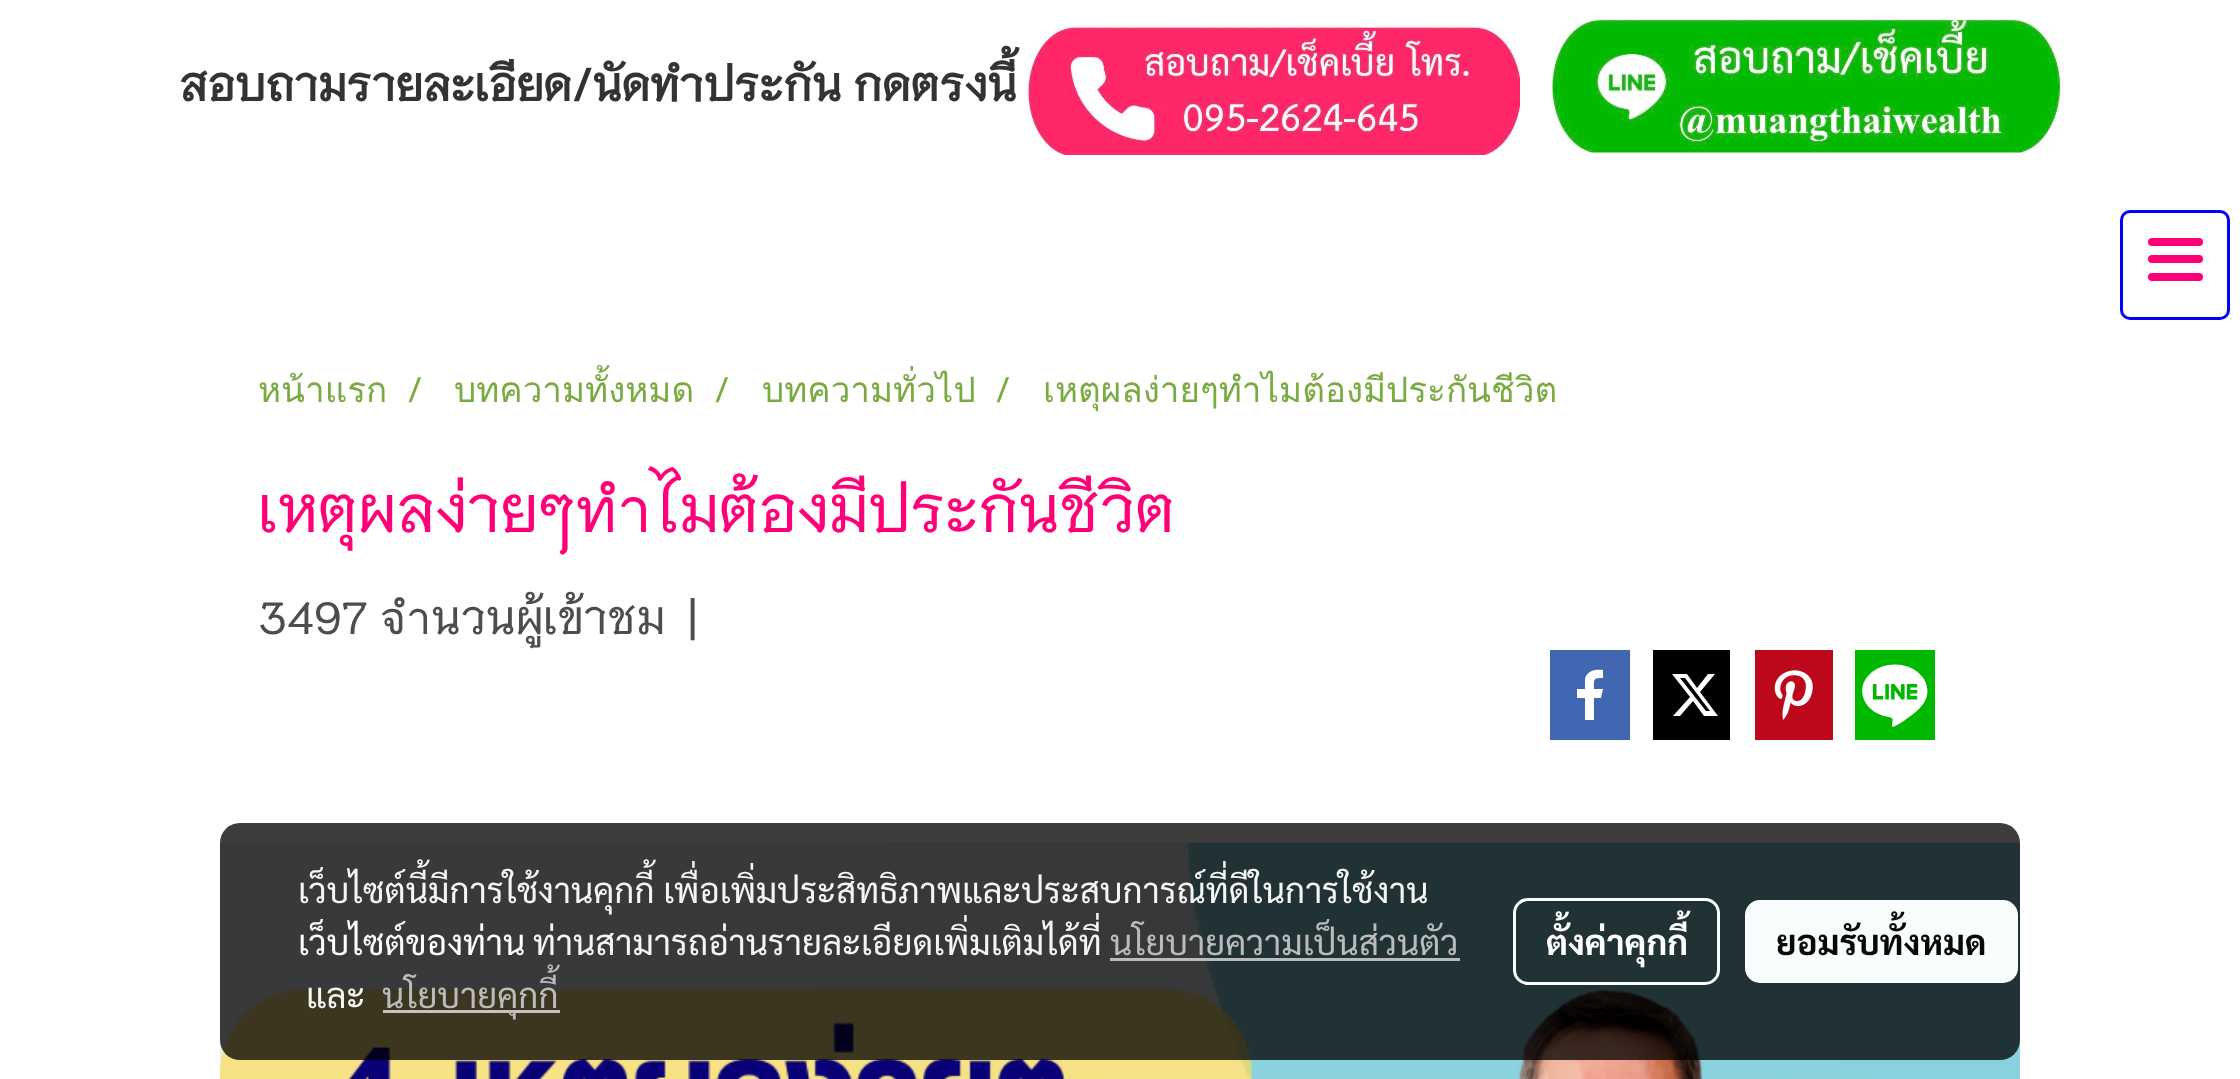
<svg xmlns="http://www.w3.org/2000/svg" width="2240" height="1079">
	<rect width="100%" height="100%" fill="#FFFFFF" />
	<text x="179" y="101" font-family="Niramit" font-size="45" font-weight="700" fill="#333333">สอบถามรายละเอียด/นัดทำประกัน กดตรงนี้</text>
	<image x="1027" y="27" width="493" height="128" href="assets/img1.png" />
	<image x="1552" y="20" width="508" height="133" href="assets/img2.png" />
	<rect x="2121.5" y="211.5" width="107" height="107" rx="8.5" fill="none" stroke="#0000FF" stroke-width="3" />
	<rect x="2148" y="255" width="55" height="8" rx="4" fill="#FF0078" />
	<rect x="2148" y="238" width="55" height="8" rx="4" fill="#FF0078" />
	<rect x="2148" y="273" width="55" height="8" rx="4" fill="#FF0078" />
	<text x="258" y="402" font-family="Loma" font-size="35" fill="#7AAB40">หน้าแรก</text>
	<text x="407" y="402" font-family="Niramit" font-size="35" fill="#7AAB40">/</text>
	<text x="454" y="402" font-family="Loma" font-size="35" fill="#7AAB40">บทความทั้งหมด</text>
	<text x="714" y="402" font-family="Niramit" font-size="35" fill="#7AAB40">/</text>
	<text x="762" y="402" font-family="Loma" font-size="35" fill="#7AAB40">บทความทั่วไป</text>
	<text x="995" y="402" font-family="Niramit" font-size="35" fill="#7AAB40">/</text>
	<text x="1043" y="402" font-family="Loma" font-size="35" fill="#7AAB40">เหตุผลง่ายๆทำไมต้องมีประกันชีวิต</text>
	<text x="258" y="532" font-family="Niramit" font-size="62.5" fill="#FF0078">เหตุผลง่ายๆทำไมต้องมีประกันชีวิต</text>
	<g font-family="Niramit" font-size="45" fill="#4D4D4F">
		<text x="258" y="634">3497 จำนวนผู้เข้าชม</text>
		<text x="688" y="634">|</text>
	</g>
	<rect x="1550" y="650" width="80" height="90" fill="#4267B2" />
	<path d="M1585 720V698H1577V689H1585V679C1587 670 1596 669 1603 670V678C1593 678 1594 679 1594 689H1603L1601 698H1594V720" fill="#FFFFFF" />
	<rect x="1653" y="650" width="77" height="90" fill="#000000" />
	<path d="M1708 674H1715L1700 692L1718 716H1704L1693 701L1680 716H1673L1690 697L1672 674H1687L1697 688ZM1706 711H1710L1685 678H1680Z" fill="#FFFFFF" />
	<rect x="1755" y="650" width="78" height="90" fill="#BD081C" />
	<image x="1774" y="670" width="39" height="50" href="assets/img3.png" />
	<rect x="1855" y="650" width="80" height="90" fill="#00B800" />
	<image x="1862" y="664" width="66" height="63" href="assets/img4.png" />
	<image x="220" y="842" width="1800" height="237" href="assets/img5.png" />
	<rect x="220" y="823" width="1800" height="237" rx="20" fill="#000000" fill-opacity="0.76" />
	<text x="298" y="903" font-family="Sarabun" font-size="35" fill="#F5F5F5">เว็บไซต์นี้มีการใช้งานคุกกี้ เพื่อเพิ่มประสิทธิภาพและประสบการณ์ที่ดีในการใช้งาน</text>
	<text x="298" y="955" font-family="Sarabun" font-size="35" fill="#FEFEFE">เว็บไซต์ของท่าน</text>
	<text x="533" y="955" font-family="Sarabun" font-size="35" fill="#F5F5F5">ท่านสามารถอ่านรายละเอียดเพิ่มเติมได้ที่</text>
	<text x="1110" y="955" font-family="Sarabun" font-size="35" fill="#BABBBB">นโยบายความเป็นส่วนตัว</text>
	<rect x="1110" y="958" width="350" height="3" fill="#C2C2C2" fill-opacity="0.95" />
	<text x="306" y="1008" font-family="Sarabun" font-size="35" fill="#F5F5F5">และ</text>
	<rect x="383" y="1010" width="177" height="3" fill="#C5C4BF" />
	<text x="382" y="1008" font-family="Sarabun" font-size="35" fill="#BABBBB">นโยบายคุกกี้</text>
	<rect x="1514.5" y="899.5" width="204" height="84" rx="13.5" fill="none" stroke="#F9FDFD" stroke-width="3" />
	<text x="1546" y="955" font-family="Sarabun" font-size="35" font-weight="700" fill="#FEFEFE">ตั้งค่าคุกกี้</text>
	<rect x="1745" y="900" width="273" height="83" rx="15" fill="#F9FDFD" />
	<text x="1776" y="955" font-family="Sarabun" font-size="35" font-weight="700" fill="#070A0B">ยอมรับทั้งหมด</text>
</svg>
